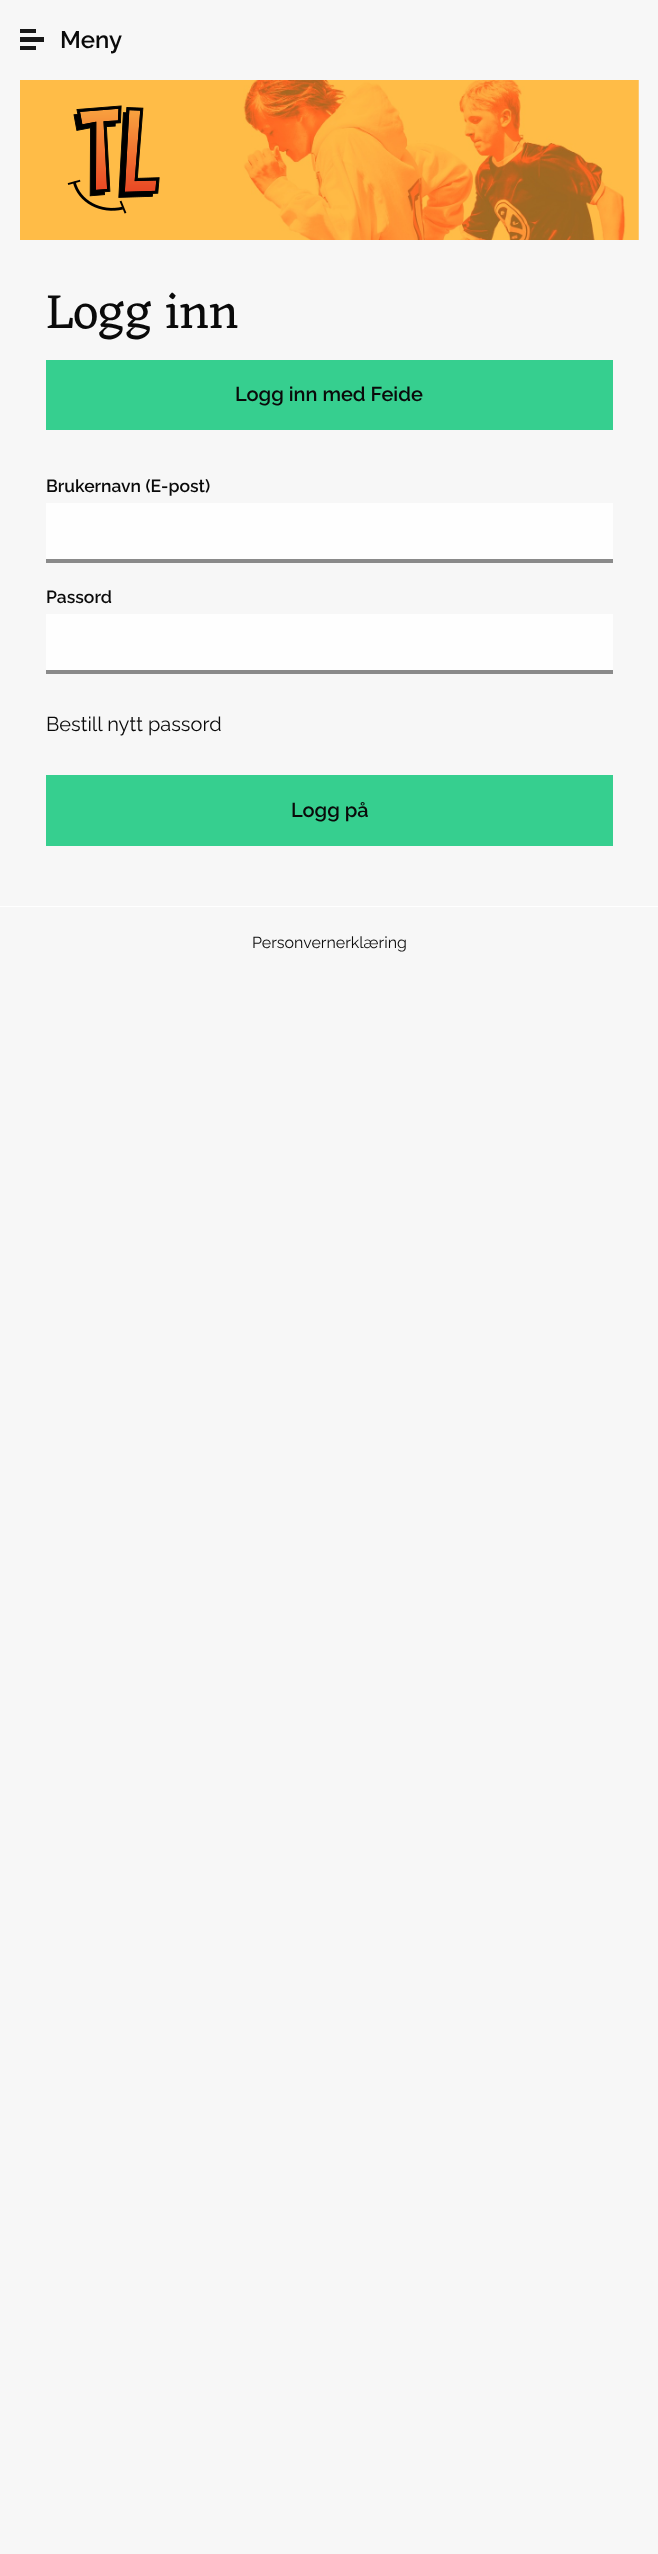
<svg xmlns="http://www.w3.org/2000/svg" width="658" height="2554">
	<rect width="100%" height="100%" fill="#F7F7F7" />
	<rect x="20" y="29" width="16" height="4" fill="#181818" />
	<rect x="20" y="37" width="24" height="5" fill="#181818" />
	<rect x="20" y="46" width="16" height="4" fill="#181818" />
	<text x="60" y="48" font-family="Raleway" font-size="24" font-weight="600" fill="#0A0A0A">Meny</text>
	<image x="20" y="80" width="619" height="160" href="assets/img1.png" />
	<image x="67" y="105" width="93" height="109" href="assets/img2.png" />
	<text x="46" y="328" font-family="Eczar" font-size="50" fill="#0A0A0A">Logg inn</text>
	<rect x="46" y="360" width="567" height="70" fill="#36CF8F" />
	<text x="235" y="401" font-family="Raleway" font-size="20" font-weight="600" fill="#0A0A0A">Logg inn med Feide</text>
	<text x="46" y="492" font-family="Raleway" font-size="17.5" font-weight="600" fill="#0A0A0A">Brukernavn (E-post)</text>
	<rect x="46" y="503" width="567" height="56" fill="#FEFEFE" />
	<rect x="46" y="559" width="567" height="4" fill="#8A8A8A" />
	<text x="46" y="603" font-family="Raleway" font-size="17.5" font-weight="600" fill="#0A0A0A">Passord</text>
	<rect x="46" y="614" width="567" height="56" fill="#FEFEFE" />
	<rect x="46" y="670" width="567" height="4" fill="#8A8A8A" />
	<text x="46" y="731" font-family="Raleway" font-size="20" fill="#0A0A0A">Bestill nytt passord</text>
	<rect x="46" y="775" width="567" height="71" fill="#36CF8F" />
	<text x="291" y="817" font-family="Raleway" font-size="20" font-weight="600" fill="#0A0A0A">Logg på</text>
	<rect x="0" y="906" width="658" height="1" fill="#FFFFFF" />
	<text x="252" y="948" font-family="Raleway" font-size="16" fill="#0A0A0A">Personvernerklæring</text>
</svg>
